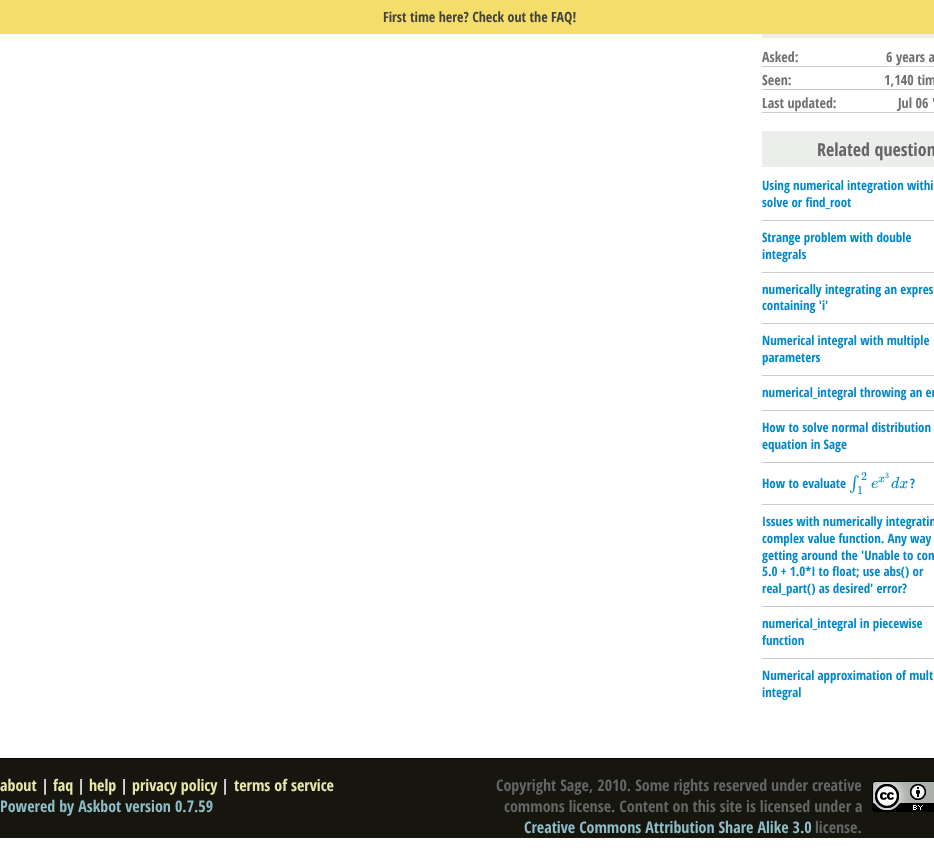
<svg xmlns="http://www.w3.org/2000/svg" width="934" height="856">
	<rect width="100%" height="100%" fill="#FFFFFF" />
	<rect x="0" y="0" width="934" height="34" fill="#F5DD69" />
	<text x="383" y="22" font-family="Open Sans Condensed" font-size="14" font-weight="700" fill="#424242">First time here? Check out the FAQ!</text>
	<rect x="762" y="34" width="172" height="4" fill="#ECEEEB" />
	<rect x="762" y="66" width="172" height="1" fill="#CCCCCC" />
	<g font-family="Open Sans Condensed" font-size="14" font-weight="700" fill="#707070">
		<text x="762" y="62">Asked:</text>
		<text x="886" y="62">6 years a</text>
	</g>
	<path d="M886 66.5H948" fill="none" stroke="#DDDDDD" stroke-dasharray="1 1" />
	<rect x="762" y="89" width="172" height="1" fill="#CCCCCC" />
	<g font-family="Open Sans Condensed" font-size="14" font-weight="700" fill="#707070">
		<text x="762" y="85">Seen:</text>
		<text x="884" y="85">1,140 tim</text>
	</g>
	<rect x="762" y="112" width="172" height="1" fill="#CCCCCC" />
	<g font-family="Open Sans Condensed" font-size="14" font-weight="700" fill="#707070">
		<text x="762" y="108">Last updated:</text>
		<text x="898" y="108">Jul 06 '</text>
	</g>
	<rect x="762" y="131" width="172" height="36" fill="#ECEEEB" />
	<text x="817" y="156" font-family="Open Sans Condensed" font-size="18" font-weight="700" fill="#656565">Related question</text>
	<rect x="762" y="220" width="172" height="1" fill="#CCCCCC" />
	<g font-family="Open Sans Condensed" font-size="13" font-weight="700" fill="#0088CC">
		<text x="762" y="190">Using numerical integration withi</text>
		<text x="762" y="207">solve or find_root</text>
	</g>
	<rect x="762" y="272" width="172" height="1" fill="#CCCCCC" />
	<g font-family="Open Sans Condensed" font-size="13" font-weight="700" fill="#0088CC">
		<text x="762" y="242">Strange problem with double</text>
		<text x="762" y="259">integrals</text>
	</g>
	<rect x="762" y="323" width="172" height="1" fill="#CCCCCC" />
	<g font-family="Open Sans Condensed" font-size="13" font-weight="700" fill="#0088CC">
		<text x="762" y="294">numerically integrating an expres</text>
		<text x="762" y="310">containing 'i'</text>
	</g>
	<rect x="762" y="375" width="172" height="1" fill="#CCCCCC" />
	<g font-family="Open Sans Condensed" font-size="13" font-weight="700" fill="#0088CC">
		<text x="762" y="345">Numerical integral with multiple</text>
		<text x="762" y="362">parameters</text>
	</g>
	<rect x="762" y="410" width="172" height="1" fill="#CCCCCC" />
	<text x="762" y="397" font-family="Open Sans Condensed" font-size="13" font-weight="700" fill="#0088CC">numerical_integral throwing an er</text>
	<rect x="762" y="462" width="172" height="1" fill="#CCCCCC" />
	<g font-family="Open Sans Condensed" font-size="13" font-weight="700" fill="#0088CC">
		<text x="762" y="432">How to solve normal distribution</text>
		<text x="762" y="449">equation in Sage</text>
	</g>
	<rect x="762" y="504" width="172" height="1" fill="#CCCCCC" />
	<text x="762" y="488" font-family="Open Sans Condensed" font-size="13" font-weight="700" fill="#0088CC">How to evaluate</text>
	<text x="849" y="488" font-family="'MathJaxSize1'" font-size="16" fill="#0088CC">∫</text>
	<g font-family="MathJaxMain" font-size="12" fill="#0088CC">
		<text x="861" y="480">2</text>
		<text x="857" y="494">1</text>
	</g>
	<text x="878" y="482" font-family="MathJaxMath" font-size="12" font-style="italic" fill="#0088CC">x</text>
	<text x="885" y="478" font-family="MathJaxMain" font-size="8" fill="#0088CC">3</text>
	<g font-family="MathJaxMath" font-size="16" font-style="italic" fill="#0088CC">
		<text x="871" y="488">e</text>
		<text x="891" y="488">dx</text>
	</g>
	<text x="910" y="488" font-family="Open Sans Condensed" font-size="13" font-weight="700" fill="#0088CC">?</text>
	<rect x="762" y="606" width="172" height="1" fill="#CCCCCC" />
	<g font-family="Open Sans Condensed" font-size="13" font-weight="700" fill="#0088CC">
		<text x="762" y="526">Issues with numerically integratin</text>
		<text x="762" y="543">complex value function. Any way</text>
		<text x="762" y="560">getting around the 'Unable to con</text>
		<text x="762" y="576">5.0 + 1.0*I to float; use abs() or</text>
		<text x="762" y="593">real_part() as desired' error?</text>
	</g>
	<rect x="762" y="658" width="172" height="1" fill="#CCCCCC" />
	<g font-family="Open Sans Condensed" font-size="13" font-weight="700" fill="#0088CC">
		<text x="762" y="628">numerical_integral in piecewise</text>
		<text x="762" y="645">function</text>
		<text x="762" y="680">Numerical approximation of mult</text>
		<text x="762" y="697">integral</text>
	</g>
	<rect x="0" y="759" width="934" height="79" fill="#16160F" />
	<rect x="0" y="758" width="934" height="1" fill="#000000" />
	<text x="0" y="791" font-family="Open Sans Condensed" font-size="16" font-weight="700" fill="#E7E8A8">about</text>
	<text x="41" y="791" font-family="Open Sans Condensed" font-size="16" font-weight="700" fill="#EEEEEE">|</text>
	<text x="53" y="791" font-family="Open Sans Condensed" font-size="16" font-weight="700" fill="#E7E8A8">faq</text>
	<text x="77" y="791" font-family="Open Sans Condensed" font-size="16" font-weight="700" fill="#EEEEEE">|</text>
	<text x="89" y="791" font-family="Open Sans Condensed" font-size="16" font-weight="700" fill="#E7E8A8">help</text>
	<text x="120" y="791" font-family="Open Sans Condensed" font-size="16" font-weight="700" fill="#EEEEEE">|</text>
	<text x="132" y="791" font-family="Open Sans Condensed" font-size="16" font-weight="700" fill="#E7E8A8">privacy policy</text>
	<text x="221" y="791" font-family="Open Sans Condensed" font-size="16" font-weight="700" fill="#EEEEEE">|</text>
	<text x="234" y="791" font-family="Open Sans Condensed" font-size="16" font-weight="700" fill="#E7E8A8">terms of service</text>
	<text x="496" y="791" font-family="Open Sans Condensed" font-size="16" font-weight="700" fill="#656565">Copyright Sage, 2010. Some rights reserved under creative</text>
	<image x="872" y="781" width="62" height="31" href="assets/img1.png" />
	<text x="504" y="812" font-family="Open Sans Condensed" font-size="16" font-weight="700" fill="#656565">commons license. Content on this site is licensed under a</text>
	<text x="524" y="833" font-family="Open Sans Condensed" font-size="16" font-weight="700" fill="#8EBCC7">Creative Commons Attribution Share Alike 3.0</text>
	<text x="815" y="833" font-family="Open Sans Condensed" font-size="16" font-weight="700" fill="#656565">license.</text>
	<text x="0" y="812" font-family="Open Sans Condensed" font-size="16" font-weight="700" fill="#8EBCC7">Powered by Askbot version 0.7.59</text>
</svg>
